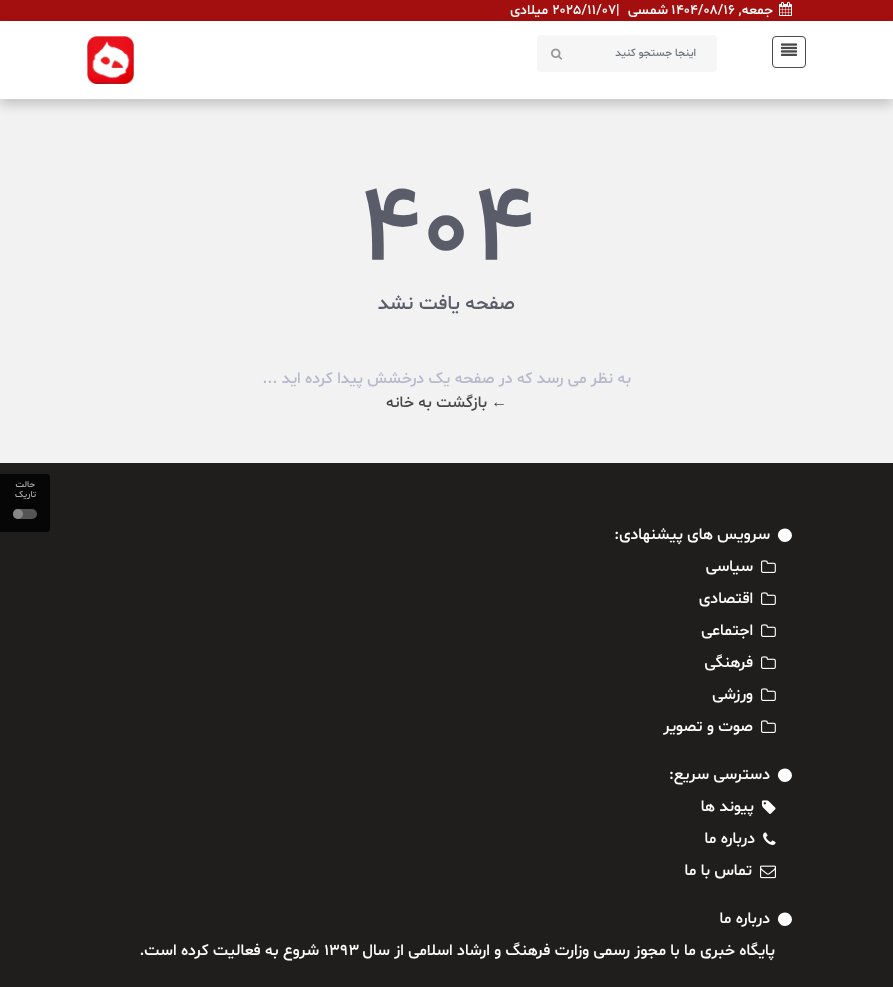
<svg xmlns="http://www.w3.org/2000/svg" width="893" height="987">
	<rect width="100%" height="100%" fill="#F2F2F2" />
	<rect x="0" y="0" width="893" height="21" fill="#A30F0F" />
	<rect x="0" y="27" width="893" height="78" fill="#000000" fill-opacity="0.18" filter="blur(6px)" />
	<image x="779" y="2" width="13" height="14" href="assets/img1.png" />
	<text x="773" y="14" font-family="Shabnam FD" font-size="14" font-weight="500" direction="rtl" fill="#FFFFFF">جمعه,</text>
	<text x="671" y="14" font-family="Shabnam FD" font-size="14" font-weight="500" fill="#FFFFFF">1404/08/16</text>
	<text x="668" y="14" font-family="Shabnam FD" font-size="14" font-weight="500" direction="rtl" fill="#FFFFFF">شمسی</text>
	<text x="552" y="14" font-family="Shabnam FD" font-size="14" font-weight="500" fill="#FFFFFF">2025/11/07|</text>
	<text x="548" y="14" font-family="Shabnam FD" font-size="14" font-weight="500" direction="rtl" fill="#FFFFFF">میلادی</text>
	<rect x="0" y="21" width="893" height="78" fill="#FFFFFF" />
	<rect x="772.5" y="36.5" width="33" height="31" rx="3.5" fill="none" stroke="#4A4A4A" />
	<image x="781" y="43" width="16" height="13" href="assets/img2.png" />
	<rect x="537.5" y="35.5" width="179" height="36" rx="3.5" fill="#F6F6F6" stroke="#F6F6F6" />
	<text x="696" y="56" font-family="Shabnam FD" font-size="11" font-weight="500" direction="rtl" fill="#6C757D">اینجا جستجو کنید</text>
	<image x="551" y="48" width="12" height="12" href="assets/img3.png" />
	<image x="87" y="36" width="47" height="48" href="assets/img4.png" />
	<text x="357" y="260" font-family="Shabnam FD" font-size="112" font-weight="500" fill="#5A5C69">404</text>
	<text x="515" y="309" font-family="Shabnam FD" font-size="20" font-weight="500" direction="rtl" fill="#5A5C69">صفحه یافت نشد</text>
	<text x="631" y="383" font-family="Shabnam FD" font-size="16" font-weight="500" direction="rtl" fill="#B7B9CC">به نظر می رسد که در صفحه یک درخشش پیدا کرده اید ...</text>
	<text x="507" y="407" font-family="Liberation Serif" font-size="16" direction="rtl" fill="#484848">←</text>
	<text x="487" y="407" font-family="Shabnam FD" font-size="16" font-weight="500" direction="rtl" fill="#484848">بازگشت به خانه</text>
	<rect x="0" y="463" width="893" height="524" fill="#201E1D" />
	<path d="M0 474H47C48.5 474 50 475.5 50 477V529C50 530.5 48.5 532 47 532H0Z" fill="#060606" />
	<g font-family="Shabnam FD" font-size="9" font-weight="500" direction="rtl" fill="#AAAAAA">
		<text x="35" y="487">حالت</text>
		<text x="36" y="497">تاریک</text>
	</g>
	<rect x="13" y="509" width="24" height="10" rx="5" fill="#555555" />
	<circle cx="18" cy="514" r="5" fill="#888888" />
	<path d="M791 532C795.5 539.5 783.5 546.5 779 538.5C774.5 531 786 524 791 532Z" fill="#FFFFFF" />
	<text x="770" y="539" font-family="Shabnam FD" font-size="16" font-weight="500" direction="rtl" fill="#FFFFFF">سرویس های پیشنهادی:</text>
	<image x="761" y="560" width="15" height="13" href="assets/img5.png" />
	<text x="753" y="571" font-family="Shabnam FD" font-size="16" font-weight="500" direction="rtl" fill="#FFFFFF">سیاسی</text>
	<image x="761" y="592" width="15" height="13" href="assets/img5.png" />
	<text x="753" y="603" font-family="Shabnam FD" font-size="16" font-weight="500" direction="rtl" fill="#FFFFFF">اقتصادی</text>
	<image x="761" y="624" width="15" height="13" href="assets/img5.png" />
	<text x="753" y="635" font-family="Shabnam FD" font-size="16" font-weight="500" direction="rtl" fill="#FFFFFF">اجتماعی</text>
	<image x="761" y="656" width="15" height="13" href="assets/img5.png" />
	<text x="753" y="667" font-family="Shabnam FD" font-size="16" font-weight="500" direction="rtl" fill="#FFFFFF">فرهنگی</text>
	<image x="761" y="688" width="15" height="13" href="assets/img5.png" />
	<text x="753" y="699" font-family="Shabnam FD" font-size="16" font-weight="500" direction="rtl" fill="#FFFFFF">ورزشی</text>
	<image x="761" y="720" width="15" height="13" href="assets/img5.png" />
	<text x="753" y="731" font-family="Shabnam FD" font-size="16" font-weight="500" direction="rtl" fill="#FFFFFF">صوت و تصویر</text>
	<path d="M791 772C795.5 779.5 783.5 786.5 779 778.5C774.5 771 786 764 791 772Z" fill="#FFFFFF" />
	<text x="770" y="779" font-family="Shabnam FD" font-size="16" font-weight="500" direction="rtl" fill="#FFFFFF">دسترسی سریع:</text>
	<image x="762" y="800" width="14" height="14" href="assets/img6.png" />
	<text x="754" y="811" font-family="Shabnam FD" font-size="16" font-weight="500" direction="rtl" fill="#FFFFFF">پیوند ها</text>
	<image x="763" y="832" width="13" height="13" href="assets/img7.png" />
	<text x="755" y="843" font-family="Shabnam FD" font-size="16" font-weight="500" direction="rtl" fill="#FFFFFF">درباره ما</text>
	<image x="760" y="865" width="16" height="14" href="assets/img8.png" />
	<text x="752" y="875" font-family="Shabnam FD" font-size="16" font-weight="500" direction="rtl" fill="#FFFFFF">تماس با ما</text>
	<path d="M791 916C795.5 923.5 783.5 930.5 779 922.5C774.5 915 786 908 791 916Z" fill="#FFFFFF" />
	<g font-family="Shabnam FD" font-size="16" font-weight="500" direction="rtl" fill="#FFFFFF">
		<text x="770" y="923">درباره ما</text>
		<text x="775" y="955">پایگاه خبری ما با مجوز رسمی وزارت فرهنگ و ارشاد اسلامی از سال</text>
	</g>
	<text x="324" y="955" font-family="Shabnam FD" font-size="16" font-weight="500" fill="#FFFFFF">۱۳۹۳</text>
	<text x="319" y="955" font-family="Shabnam FD" font-size="16" font-weight="500" direction="rtl" fill="#FFFFFF">شروع به فعالیت کرده است.</text>
</svg>
